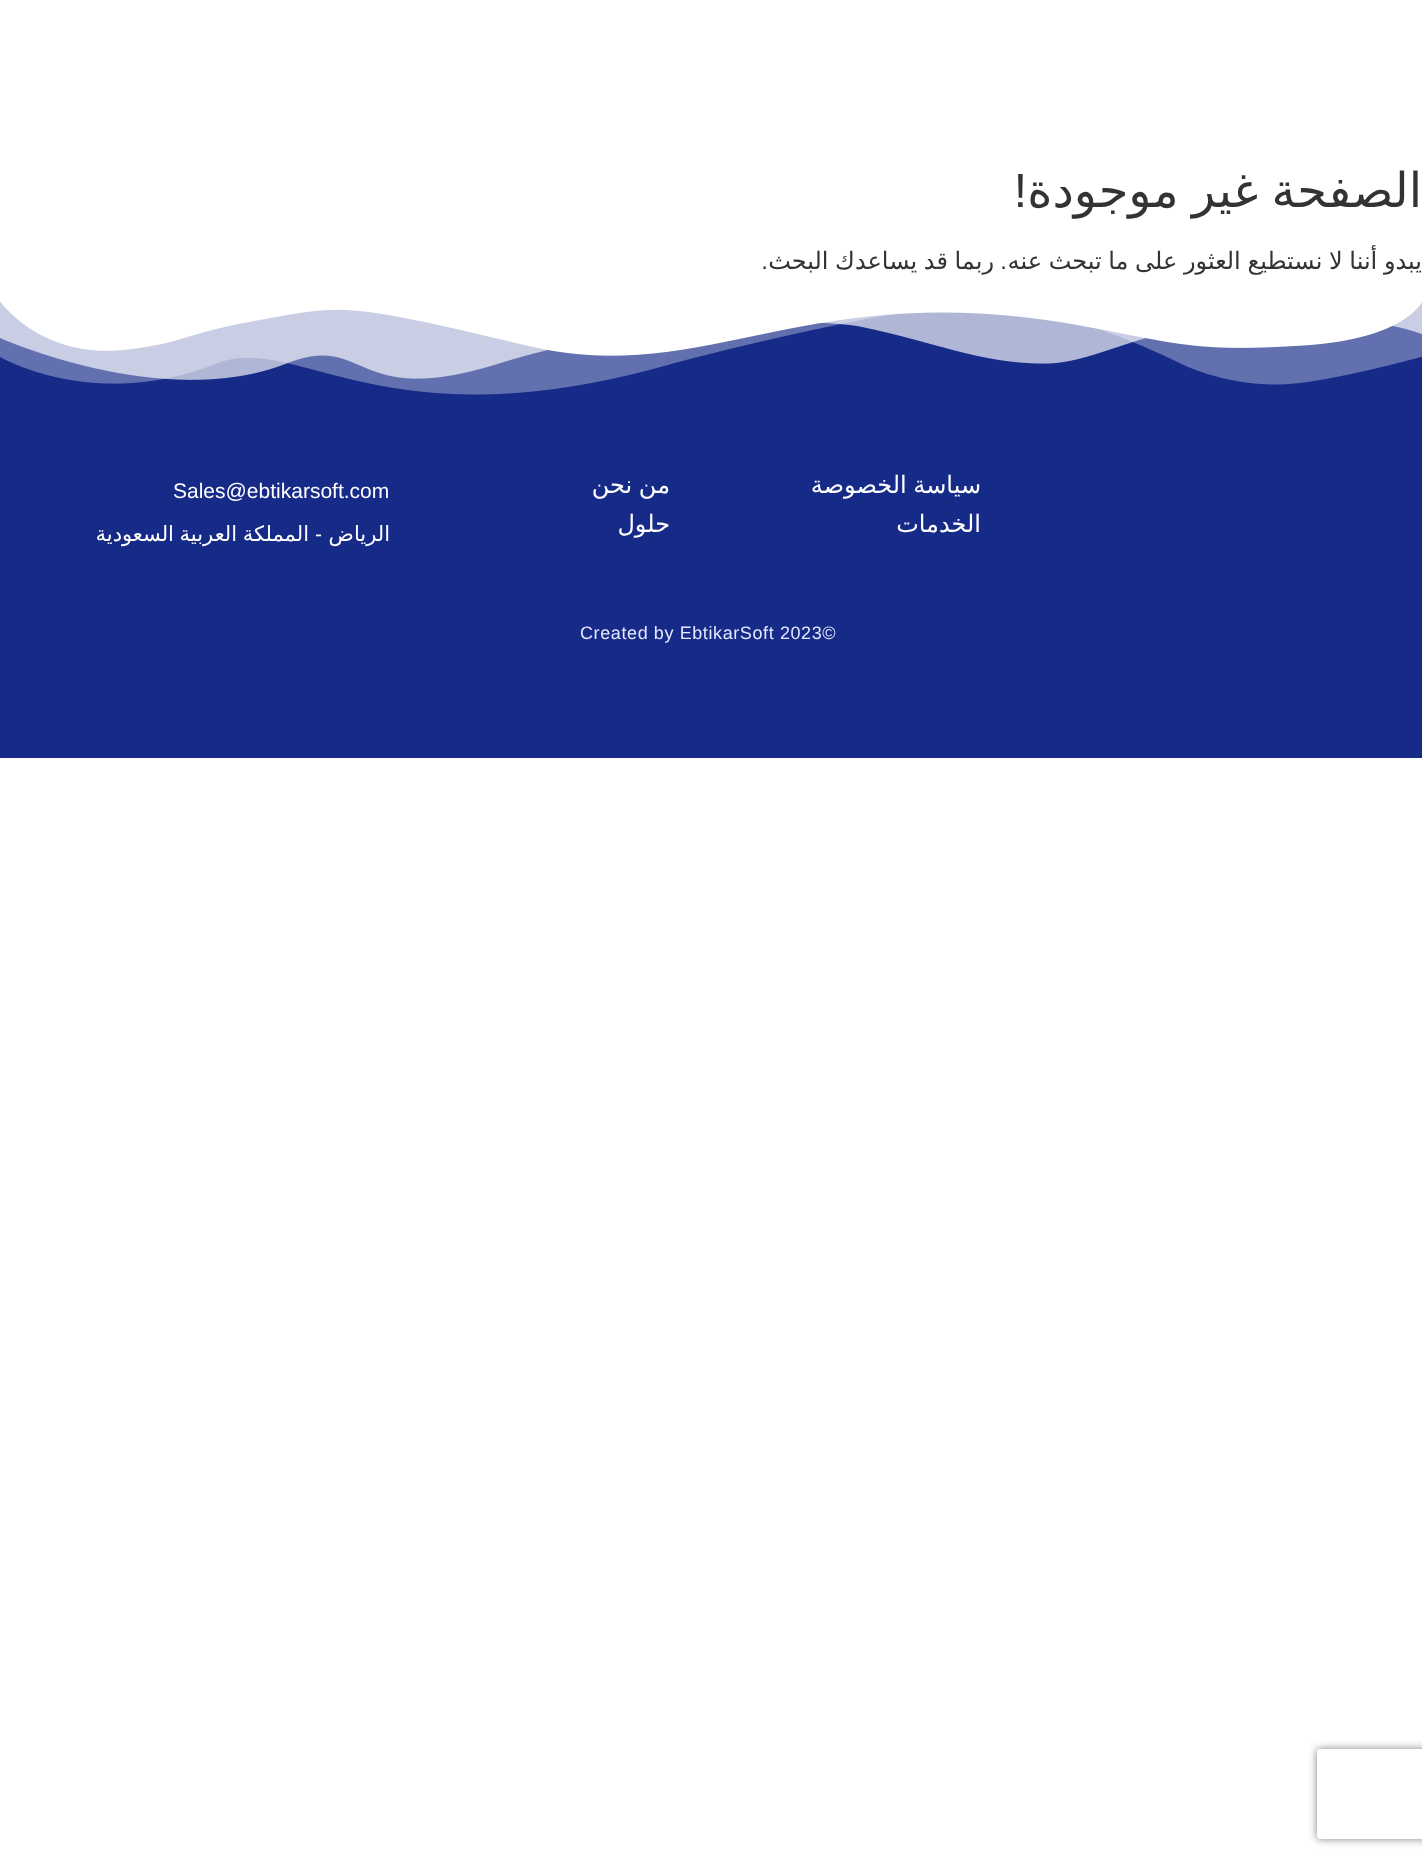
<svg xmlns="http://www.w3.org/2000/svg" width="1422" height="1859">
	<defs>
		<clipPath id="clip1"><path d="M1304 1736H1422V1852H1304ZM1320 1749H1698C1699.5 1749 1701 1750.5 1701 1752V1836C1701 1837.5 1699.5 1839 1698 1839H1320C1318.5 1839 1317 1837.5 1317 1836V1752C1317 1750.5 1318.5 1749 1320 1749Z" clip-rule="evenodd" /></clipPath>
	</defs>
	<rect width="100%" height="100%" fill="#FFFFFF" />
	<text x="1422" y="207" word-spacing="-2" font-family="DejaVu Sans" font-size="48" direction="rtl" fill="#333333">الصفحة غير موجودة</text>
	<text x="1027" y="207" font-family="Liberation Sans" font-size="48" direction="rtl" fill="#333333">!</text>
	<text x="1422" y="269" word-spacing="-1" font-family="DejaVu Sans" font-size="24" direction="rtl" fill="#333333">يبدو أننا لا نستطيع العثور على ما تبحث عنه</text>
	<text x="1007" y="269" font-family="Liberation Sans" font-size="24" direction="rtl" fill="#333333">.</text>
	<text x="994" y="269" word-spacing="-1" font-family="DejaVu Sans" font-size="24" direction="rtl" fill="#333333">ربما قد يساعدك البحث</text>
	<text x="768" y="269" font-family="Liberation Sans" font-size="24" direction="rtl" fill="#333333">.</text>
	<rect x="0" y="302" width="1422" height="456" fill="#162B88" />
	<image x="0" y="302" width="1422" height="93" href="assets/img1.png" />
	<g font-family="DejaVu Sans" font-size="24" direction="rtl" fill="#FFFFFF">
		<text x="981" y="493" word-spacing="-1">سياسة الخصوصة</text>
		<text x="981" y="532">الخدمات</text>
		<text x="670" y="493" word-spacing="-1">من نحن</text>
		<text x="670" y="532">حلول</text>
	</g>
	<text x="173" y="498" font-family="Liberation Sans" font-size="21" fill="#FFFFFF">Sales@ebtikarsoft.com</text>
	<text x="390" y="541" font-family="DejaVu Sans" font-size="21" direction="rtl" fill="#FFFFFF">الرياض</text>
	<text x="322" y="541" font-family="Liberation Sans" font-size="21" direction="rtl" fill="#FFFFFF">-</text>
	<text x="309" y="541" word-spacing="-1" font-family="DejaVu Sans" font-size="21" direction="rtl" fill="#FFFFFF">المملكة العربية السعودية</text>
	<text x="580" y="639" font-family="Liberation Sans" font-size="18" letter-spacing="0.6" fill="#E5E6FF">Created by EbtikarSoft 2023©</text>
	<g clip-path="url(#clip1)">
		<rect x="1317" y="1749" width="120" height="90" rx="3" fill="#808080" filter="blur(4px)" />
	</g>
</svg>
